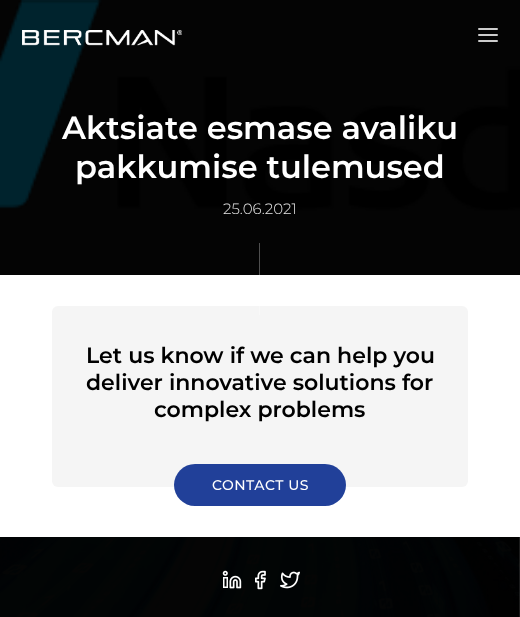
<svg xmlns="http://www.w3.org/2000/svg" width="520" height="617">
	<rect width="100%" height="100%" fill="#FFFFFF" />
	<rect x="0" y="0" width="520" height="275" fill="#040404" />
	<image x="0" y="0" width="520" height="211" href="assets/img2.png" />
	<image x="22" y="30" width="160" height="16" href="assets/img1.png" />
	<rect x="478" y="28" width="20" height="2" rx="1" fill="#CDCDCD" />
	<rect x="478" y="34" width="20" height="2" rx="1" fill="#CDCDCD" />
	<rect x="478" y="40" width="20" height="2" rx="1" fill="#CDCDCD" />
	<rect x="259" y="243" width="1" height="32" fill="#4F4F4F" />
	<g font-family="Montserrat" font-size="32" font-weight="600" fill="#FFFFFF">
		<text x="62" y="139">Aktsiate esmase avaliku</text>
		<text x="75" y="178">pakkumise tulemused</text>
	</g>
	<text x="223" y="214" font-family="Montserrat" font-size="15" font-weight="300" fill="#E6E6E6">25.06.2021</text>
	<rect x="52" y="306" width="416" height="181" rx="6" fill="#F5F5F5" />
	<rect x="259" y="306" width="1" height="9" fill="#F8F8F8" />
	<g font-family="Montserrat" font-size="22" font-weight="600" fill="#000000">
		<text x="86" y="363">Let us know if we can help you</text>
		<text x="86" y="390">deliver innovative solutions for</text>
		<text x="154" y="417">complex problems</text>
	</g>
	<rect x="174" y="464" width="172" height="42" rx="21" fill="#214099" />
	<text x="212" y="490" font-family="Montserrat" font-size="14" font-weight="500" letter-spacing="0.5" fill="#FFFFFF">CONTACT US</text>
	<image x="0" y="537" width="520" height="80" href="assets/img3.png" />
	<image x="222" y="570" width="20" height="19" href="assets/img4.png" />
	<image x="255" y="570" width="11" height="20" href="assets/img5.png" />
	<image x="280" y="571" width="20" height="18" href="assets/img6.png" />
</svg>
